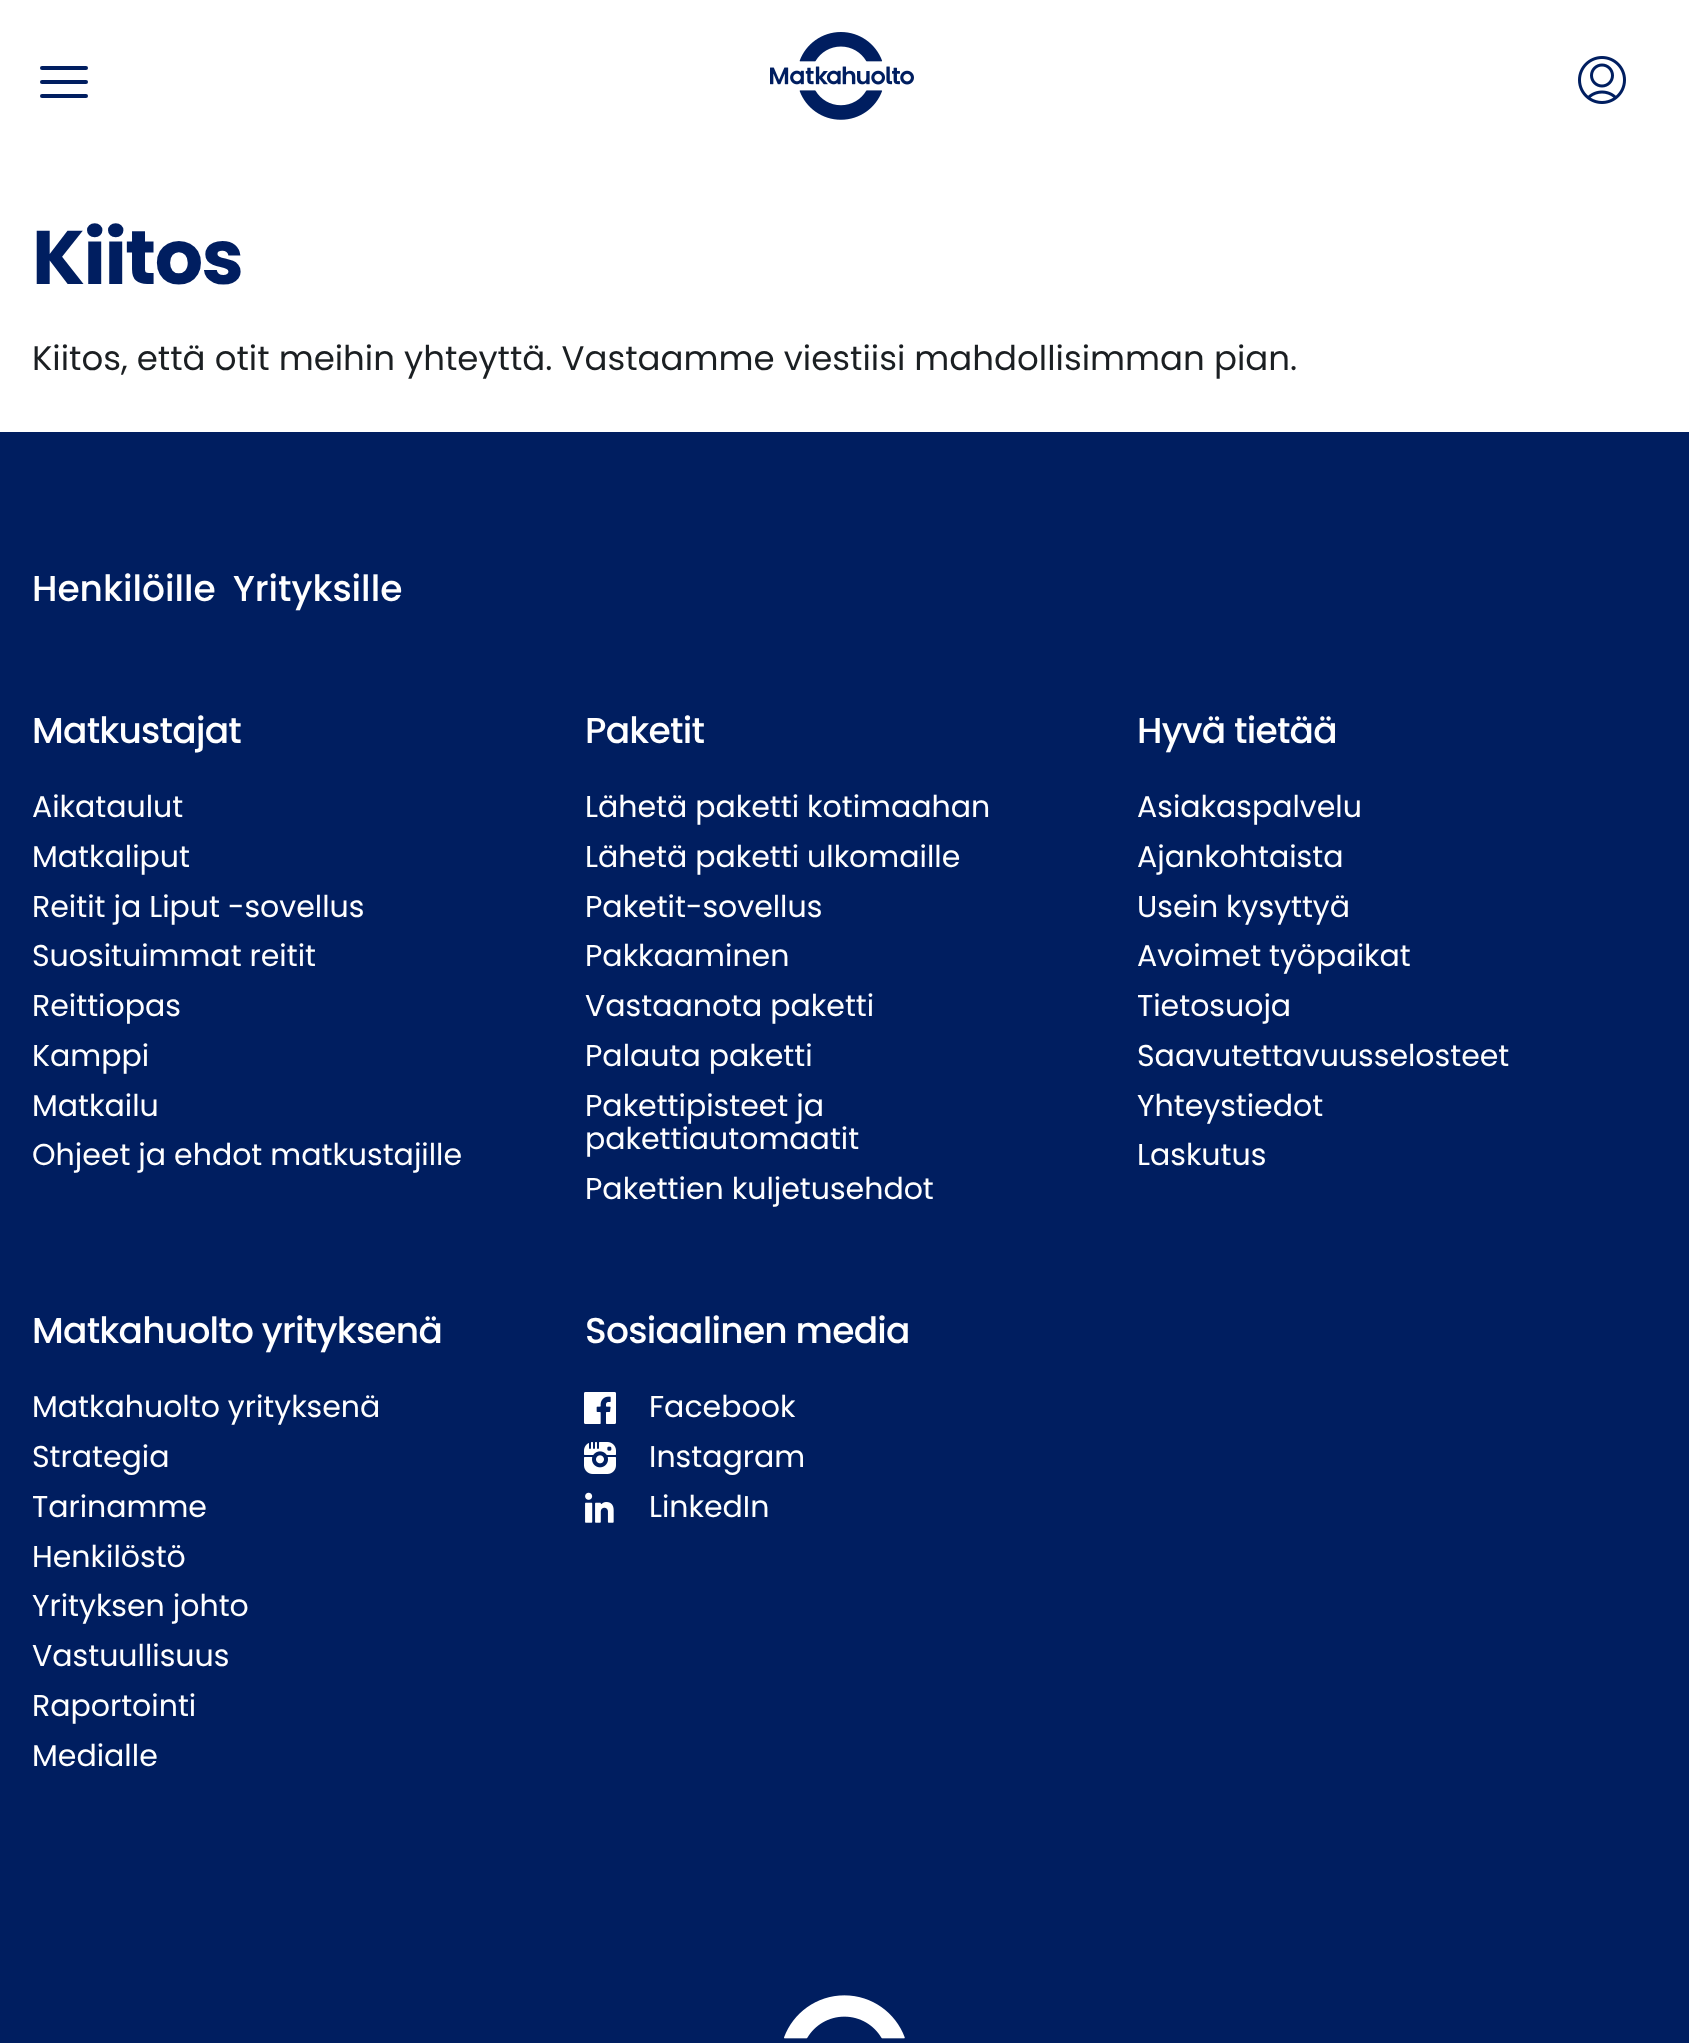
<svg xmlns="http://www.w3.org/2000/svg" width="1689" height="2043">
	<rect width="100%" height="100%" fill="#FFFFFF" />
	<rect x="40" y="66" width="48" height="4" rx="2" fill="#001E60" />
	<rect x="40" y="80" width="48" height="4" rx="2" fill="#001E60" />
	<rect x="40" y="94" width="48" height="4" rx="2" fill="#001E60" />
	<image x="770" y="32" width="144" height="88" href="assets/img1.png" />
	<image x="1578" y="56" width="48" height="48" href="assets/img2.png" />
	<text x="32" y="284" font-family="Poppins" font-size="76" font-weight="700" letter-spacing="-1.5" fill="#001E60">Kiitos</text>
	<text x="32" y="370" font-family="Poppins" font-size="34" fill="#1B1F22">Kiitos, että otit meihin yhteyttä. Vastaamme viestiisi mahdollisimman pian.</text>
	<rect x="0" y="432" width="1689" height="1611" fill="#001E60" />
	<g font-family="Poppins" font-size="36" font-weight="500" fill="#FFFFFF">
		<text x="32" y="601">Henkilöille</text>
		<text x="233" y="601">Yrityksille</text>
	</g>
	<text x="32" y="743" font-family="Poppins" font-size="36" font-weight="500" letter-spacing="-0.75" fill="#FFFFFF">Matkustajat</text>
	<g font-family="Poppins" font-size="30" fill="#FFFFFF">
		<text x="32" y="817">Aikataulut</text>
		<text x="32" y="867">Matkaliput</text>
		<text x="32" y="917">Reitit ja Liput -sovellus</text>
		<text x="32" y="966">Suosituimmat reitit</text>
		<text x="32" y="1016">Reittiopas</text>
		<text x="32" y="1066">Kamppi</text>
		<text x="32" y="1116">Matkailu</text>
		<text x="32" y="1165">Ohjeet ja ehdot matkustajille</text>
	</g>
	<text x="585" y="743" font-family="Poppins" font-size="36" font-weight="500" letter-spacing="-0.75" fill="#FFFFFF">Paketit</text>
	<g font-family="Poppins" font-size="30" fill="#FFFFFF">
		<text x="585" y="817">Lähetä paketti kotimaahan</text>
		<text x="585" y="867">Lähetä paketti ulkomaille</text>
		<text x="585" y="917">Paketit-sovellus</text>
		<text x="585" y="966">Pakkaaminen</text>
		<text x="585" y="1016">Vastaanota paketti</text>
		<text x="585" y="1066">Palauta paketti</text>
		<text x="585" y="1116">Pakettipisteet ja</text>
		<text x="585" y="1149">pakettiautomaatit</text>
		<text x="585" y="1199">Pakettien kuljetusehdot</text>
	</g>
	<text x="1137" y="743" font-family="Poppins" font-size="36" font-weight="500" letter-spacing="-0.75" fill="#FFFFFF">Hyvä tietää</text>
	<g font-family="Poppins" font-size="30" fill="#FFFFFF">
		<text x="1137" y="817">Asiakaspalvelu</text>
		<text x="1137" y="867">Ajankohtaista</text>
		<text x="1137" y="917">Usein kysyttyä</text>
		<text x="1137" y="966">Avoimet työpaikat</text>
		<text x="1137" y="1016">Tietosuoja</text>
		<text x="1137" y="1066">Saavutettavuusselosteet</text>
		<text x="1137" y="1116">Yhteystiedot</text>
		<text x="1137" y="1165">Laskutus</text>
	</g>
	<text x="32" y="1343" font-family="Poppins" font-size="36" font-weight="500" letter-spacing="-0.75" fill="#FFFFFF">Matkahuolto yrityksenä</text>
	<g font-family="Poppins" font-size="30" fill="#FFFFFF">
		<text x="32" y="1417">Matkahuolto yrityksenä</text>
		<text x="32" y="1467">Strategia</text>
		<text x="32" y="1517">Tarinamme</text>
		<text x="32" y="1567">Henkilöstö</text>
		<text x="32" y="1616">Yrityksen johto</text>
		<text x="32" y="1666">Vastuullisuus</text>
		<text x="32" y="1716">Raportointi</text>
		<text x="32" y="1766">Medialle</text>
	</g>
	<text x="585" y="1343" font-family="Poppins" font-size="36" font-weight="500" letter-spacing="-0.75" fill="#FFFFFF">Sosiaalinen media</text>
	<image x="584" y="1392" width="32" height="32" href="assets/img3.png" />
	<text x="649" y="1417" font-family="Poppins" font-size="30" fill="#FFFFFF">Facebook</text>
	<image x="584" y="1442" width="32" height="32" href="assets/img4.png" />
	<text x="649" y="1467" font-family="Poppins" font-size="30" fill="#FFFFFF">Instagram</text>
	<image x="585" y="1492" width="29" height="31" href="assets/img5.png" />
	<text x="649" y="1517" font-family="Poppins" font-size="30" fill="#FFFFFF">LinkedIn</text>
	<image x="784" y="1995" width="121" height="44" href="assets/img6.png" />
</svg>
